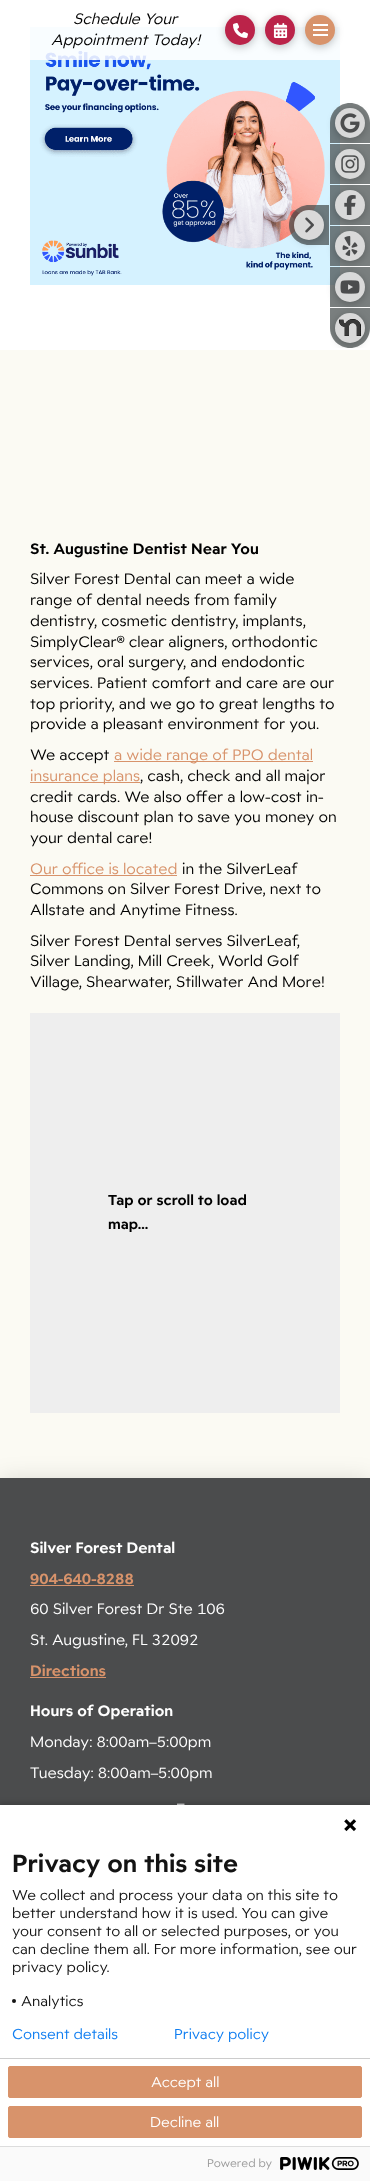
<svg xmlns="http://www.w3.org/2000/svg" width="370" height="2181">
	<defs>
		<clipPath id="clip1"><rect x="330" y="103" width="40" height="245" /></clipPath>
	</defs>
	<rect width="100%" height="100%" fill="#FFFFFF" />
	<image x="30" y="27" width="310" height="258" href="assets/img10.png" />
	<rect x="30" y="27" width="310" height="33" fill="#FFFFFF" fill-opacity="0.85" />
	<g font-family="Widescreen" font-size="14.8" font-style="italic" fill="#000000">
		<text x="73" y="24">Schedule Your</text>
		<text x="51" y="45">Appointment Today!</text>
	</g>
	<rect x="225" y="17" width="30" height="30" rx="15" fill="#000000" fill-opacity="0.25" filter="blur(4.5px)" />
	<circle cx="240" cy="30" r="15" fill="#BB2349" />
	<image x="233" y="23" width="15" height="15" href="assets/img1.png" />
	<rect x="265" y="17" width="30" height="30" rx="15" fill="#000000" fill-opacity="0.25" filter="blur(4.5px)" />
	<circle cx="280" cy="30" r="15" fill="#BB2349" />
	<image x="273" y="23" width="15" height="15" href="assets/img2.png" />
	<rect x="305" y="17" width="30" height="30" rx="15" fill="#000000" fill-opacity="0.25" filter="blur(4.5px)" />
	<circle cx="320" cy="30" r="15" fill="#D8936B" />
	<rect x="313" y="24" width="15" height="2" fill="#FFFFFF" />
	<rect x="313" y="29" width="15" height="2" fill="#FFFFFF" />
	<rect x="313" y="34" width="15" height="2" fill="#FFFFFF" />
	<path d="M309 205H329V245H309C298 245 289 236 289 225C289 214 298 205 309 205Z" fill="#414949" fill-opacity="0.7" />
	<rect x="294" y="212" width="30" height="30" rx="15" fill="#000000" fill-opacity="0.25" filter="blur(4.5px)" />
	<circle cx="309" cy="225" r="15" fill="#D9D9D9" />
	<image x="305" y="217" width="9" height="16" href="assets/img3.png" />
	<path d="M350 103C361 103 370 112 370 123V143H330V123C330 112 339 103 350 103Z" fill="#414949" fill-opacity="0.7" />
	<rect x="335" y="110" width="30" height="30" rx="15" fill="#000000" fill-opacity="0.25" filter="blur(4.5px)" />
	<circle cx="350" cy="123" r="15" fill="#D9D9D9" />
	<image x="340" y="113" width="20" height="20" href="assets/img4.png" />
	<rect x="330" y="144" width="40" height="40" fill="#414949" fill-opacity="0.7" />
	<rect x="335" y="151" width="30" height="30" rx="15" fill="#000000" fill-opacity="0.25" filter="blur(4.5px)" />
	<circle cx="350" cy="164" r="15" fill="#D9D9D9" />
	<image x="341" y="155" width="18" height="18" href="assets/img5.png" />
	<rect x="330" y="185" width="40" height="40" fill="#414949" fill-opacity="0.7" />
	<rect x="335" y="192" width="30" height="30" rx="15" fill="#000000" fill-opacity="0.25" filter="blur(4.5px)" />
	<circle cx="350" cy="205" r="15" fill="#D9D9D9" />
	<image x="344" y="195" width="12" height="20" href="assets/img6.png" />
	<rect x="330" y="226" width="40" height="40" fill="#414949" fill-opacity="0.7" />
	<rect x="335" y="233" width="30" height="30" rx="15" fill="#000000" fill-opacity="0.25" filter="blur(4.5px)" />
	<circle cx="350" cy="246" r="15" fill="#D9D9D9" />
	<image x="342" y="236" width="16" height="20" href="assets/img7.png" />
	<rect x="330" y="267" width="40" height="40" fill="#414949" fill-opacity="0.7" />
	<rect x="335" y="274" width="30" height="30" rx="15" fill="#000000" fill-opacity="0.25" filter="blur(4.5px)" />
	<circle cx="350" cy="287" r="15" fill="#D9D9D9" />
	<image x="340" y="280" width="20" height="14" href="assets/img8.png" />
	<path d="M330 308H370V328C370 339 361 348 350 348C339 348 330 339 330 328Z" fill="#414949" fill-opacity="0.7" />
	<rect x="0" y="350" width="370" height="1128" fill="#FBFAF3" />
	<g clip-path="url(#clip1)">
		<rect x="335" y="315" width="30" height="30" rx="15" fill="#000000" fill-opacity="0.25" filter="blur(4.5px)" />
	</g>
	<circle cx="350" cy="328" r="15" fill="#D9D9D9" />
	<image x="339" y="319" width="22" height="17" href="assets/img9.png" />
	<text x="30" y="554" font-family="Widescreen" font-size="14.8" font-weight="700" fill="#000000">St. Augustine Dentist Near You</text>
	<g font-family="Widescreen" font-size="14.8" fill="#000000">
		<text x="30" y="584">Silver Forest Dental can meet a wide</text>
		<text x="30" y="605">range of dental needs from family</text>
		<text x="30" y="626">dentistry, cosmetic dentistry, implants,</text>
		<text x="30" y="647">SimplyClear® clear aligners, orthodontic</text>
		<text x="30" y="667">services, oral surgery, and endodontic</text>
		<text x="30" y="688">services. Patient comfort and care are our</text>
		<text x="30" y="709">top priority, and we go to great lengths to</text>
		<text x="30" y="729">provide a pleasant environment for you.</text>
		<text x="30" y="760">We accept</text>
	</g>
	<rect x="114" y="761" width="199" height="1" fill="#D8936B" />
	<text x="114" y="760" font-family="Widescreen" font-size="14.8" fill="#D8936B">a wide range of PPO dental</text>
	<rect x="30" y="782" width="110" height="1" fill="#D8936B" />
	<text x="30" y="781" font-family="Widescreen" font-size="14.8" fill="#D8936B">insurance plans</text>
	<g font-family="Widescreen" font-size="14.8" fill="#000000">
		<text x="140" y="781">, cash, check and all major</text>
		<text x="30" y="802">credit cards. We also offer a low-cost in-</text>
		<text x="30" y="822">house discount plan to save you money on</text>
		<text x="30" y="843">your dental care!</text>
	</g>
	<text x="30" y="874" font-family="Widescreen" font-size="14.8" fill="#D8936B">Our office is located</text>
	<rect x="30" y="875" width="147" height="1" fill="#D8936B" />
	<g font-family="Widescreen" font-size="14.8" fill="#000000">
		<text x="182" y="874">in the SilverLeaf</text>
		<text x="30" y="894">Commons on Silver Forest Drive, next to</text>
		<text x="30" y="915">Allstate and Anytime Fitness.</text>
		<text x="30" y="946">Silver Forest Dental serves SilverLeaf,</text>
		<text x="30" y="966">Silver Landing, Mill Creek, World Golf</text>
		<text x="30" y="987">Village, Shearwater, Stillwater And More!</text>
	</g>
	<rect x="30" y="1013" width="310" height="400" fill="#EEEEEE" />
	<g font-family="Widescreen" font-size="14" font-weight="700" fill="#000000">
		<text x="108" y="1205">Tap or scroll to load</text>
		<text x="108" y="1229">map...</text>
	</g>
	<rect x="0" y="1481" width="370" height="621" fill="#000000" fill-opacity="0.15" filter="blur(12.5px)" />
	<rect x="0" y="1478" width="370" height="327" fill="#4B4C4D" />
	<text x="30" y="1553" font-family="Widescreen" font-size="14.8" font-weight="700" fill="#FFFFFF">Silver Forest Dental</text>
	<text x="30" y="1584" font-family="Widescreen" font-size="14.8" font-weight="700" fill="#D8936B">904-640-8288</text>
	<rect x="30" y="1585" width="104" height="1" fill="#D8936B" />
	<g font-family="Widescreen" font-size="14.8" fill="#FFFFFF">
		<text x="30" y="1614">60 Silver Forest Dr Ste 106</text>
		<text x="30" y="1645">St. Augustine, FL 32092</text>
	</g>
	<text x="30" y="1676" font-family="Widescreen" font-size="14.8" font-weight="700" fill="#D8936B">Directions</text>
	<rect x="30" y="1677" width="76" height="1" fill="#D8936B" />
	<text x="30" y="1716" font-family="Widescreen" font-size="14.8" font-weight="700" fill="#FFFFFF">Hours of Operation</text>
	<g font-family="Widescreen" font-size="14.8" fill="#FFFFFF">
		<text x="30" y="1747">Monday: 8:00am–5:00pm</text>
		<text x="30" y="1778">Tuesday: 8:00am–5:00pm</text>
		<text x="177" y="1808">–</text>
	</g>
	<rect x="-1" y="1802" width="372" height="378" fill="#000000" fill-opacity="0.14" filter="blur(2.5px)" />
	<rect x="0" y="1805" width="370" height="341" fill="#FFFFFF" />
	<image x="344" y="1819" width="13" height="13" href="assets/img11.png" />
	<text x="12" y="1872" font-family="Widescreen" font-size="24" font-weight="700" fill="#131313">Privacy on this site</text>
	<g font-family="Widescreen" font-size="14" fill="#131313">
		<text x="12" y="1900">We collect and process your data on this site to</text>
		<text x="12" y="1918">better understand how it is used. You can give</text>
		<text x="12" y="1936">your consent to all or selected purposes, or you</text>
		<text x="12" y="1954">can decline them all. For more information, see our</text>
		<text x="12" y="1972">privacy policy.</text>
	</g>
	<circle cx="14" cy="2001" r="2" fill="#131313" />
	<text x="21" y="2006" font-family="Widescreen" font-size="14" fill="#131313">Analytics</text>
	<rect x="0" y="2058" width="370" height="1" fill="#CCCCCC" />
	<rect x="8.5" y="2066.5" width="353" height="31" rx="1.5" fill="#D8936B" stroke="#D8936B" />
	<text x="151" y="2087" font-family="Widescreen" font-size="14" fill="#FFFFFF">Accept all</text>
	<rect x="8.5" y="2106.5" width="353" height="31" rx="1.5" fill="#D8936B" stroke="#D8936B" />
	<text x="150" y="2127" font-family="Widescreen" font-size="14" fill="#FFFFFF">Decline all</text>
	<g font-family="Widescreen" font-size="14" fill="#107EF1">
		<text x="12" y="2039">Consent details</text>
		<text x="174" y="2039">Privacy policy</text>
	</g>
	<rect x="0" y="2147" width="370" height="34" fill="#FAFAFA" />
	<rect x="0" y="2146" width="370" height="1" fill="#DDDDDD" />
	<text x="207" y="2167" font-family="Widescreen" font-size="11" fill="#999999">Powered by</text>
	<image x="280" y="2157" width="79" height="13" href="assets/img12.png" />
</svg>
